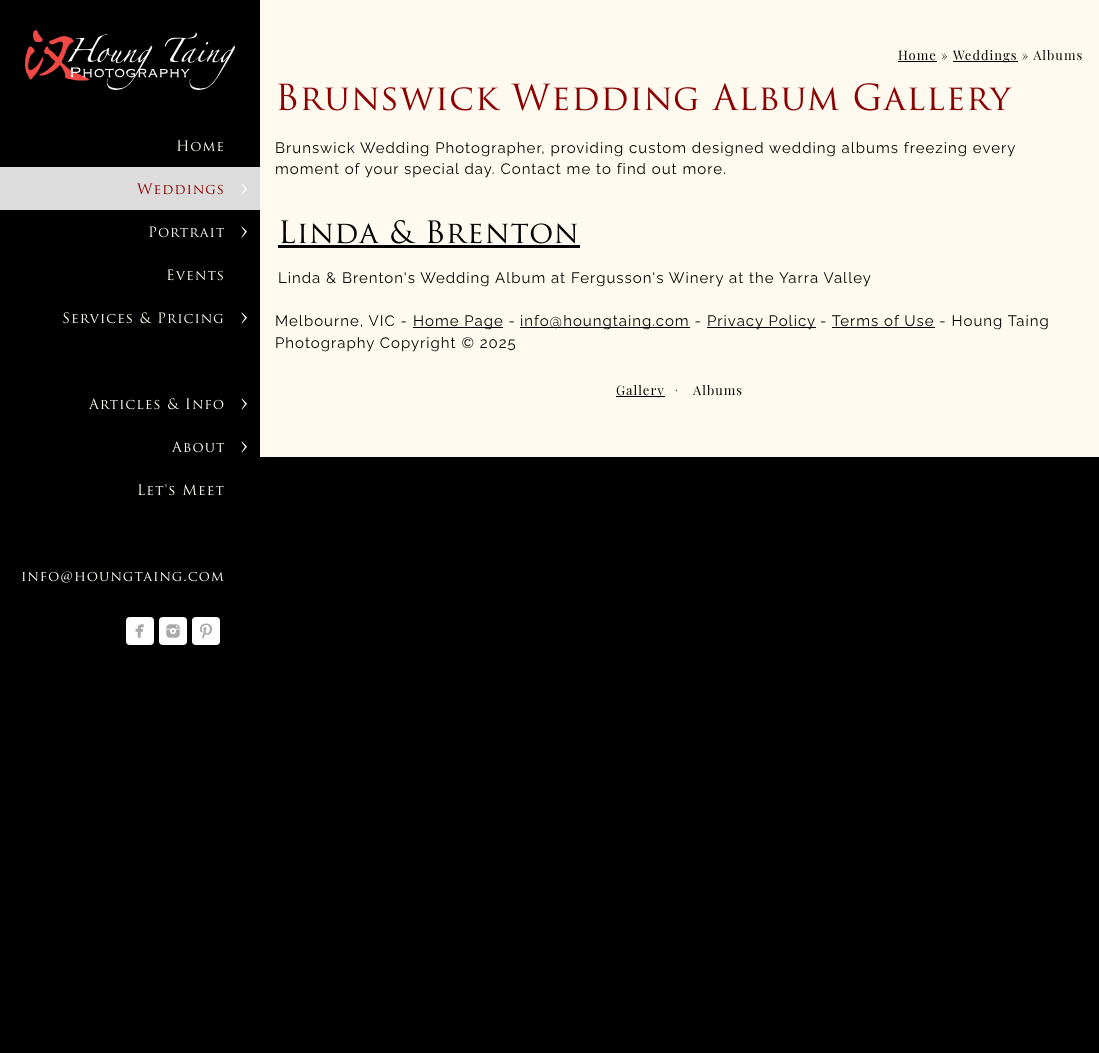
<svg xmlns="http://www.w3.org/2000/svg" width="1099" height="1053">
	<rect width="100%" height="100%" fill="#000000" />
	<image x="25" y="30" width="210" height="60" href="assets/img1.png" />
	<image x="177" y="140" width="47" height="12" href="assets/img2.png" />
	<rect x="0" y="167" width="260" height="43" fill="#DCDCDC" />
	<image x="137" y="183" width="86" height="12" href="assets/img3.png" />
	<image x="241" y="183" width="6" height="12" href="assets/img4.png" />
	<image x="149" y="226" width="75" height="12" href="assets/img5.png" />
	<image x="241" y="226" width="6" height="12" href="assets/img6.png" />
	<image x="167" y="269" width="56" height="12" href="assets/img7.png" />
	<image x="63" y="312" width="160" height="12" href="assets/img8.png" />
	<image x="241" y="312" width="6" height="12" href="assets/img6.png" />
	<image x="88" y="398" width="136" height="12" href="assets/img9.png" />
	<image x="241" y="398" width="6" height="12" href="assets/img6.png" />
	<image x="171" y="441" width="54" height="12" href="assets/img10.png" />
	<image x="241" y="441" width="6" height="12" href="assets/img6.png" />
	<image x="138" y="484" width="86" height="12" href="assets/img11.png" />
	<image x="22" y="571" width="202" height="12" href="assets/img12.png" />
	<rect x="126" y="617" width="28" height="28" rx="4" fill="#FFFFFF" />
	<image x="135" y="624" width="9" height="14" href="assets/img13.png" />
	<rect x="159" y="617" width="28" height="28" rx="4" fill="#FFFFFF" />
	<image x="166" y="624" width="14" height="14" href="assets/img14.png" />
	<rect x="192" y="617" width="28" height="28" rx="4" fill="#FFFFFF" />
	<image x="200" y="623" width="12" height="16" href="assets/img15.png" />
	<rect x="260" y="0" width="839" height="457" fill="#FFFAF0" />
	<text x="898" y="60" font-family="Playfair Display" font-size="13" letter-spacing="1" fill="#000000">Home »</text>
	<rect x="898" y="61" width="39" height="1" fill="#000000" />
	<rect x="953" y="61" width="65" height="1" fill="#000000" />
	<text x="953" y="60" font-family="Playfair Display" font-size="13" letter-spacing="1" fill="#000000">Weddings » Albums</text>
	<image x="278" y="83" width="734" height="28" href="assets/img16.png" />
	<g font-family="Raleway" font-size="15" font-weight="100" letter-spacing="1" fill="#000000">
		<text x="275" y="153">Brunswick Wedding Photographer, providing custom designed wedding albums freezing every</text>
		<text x="275" y="174">moment of your special day. Contact me to find out more.</text>
	</g>
	<image x="280" y="220" width="297" height="24" href="assets/img17.png" />
	<rect x="278" y="245" width="302" height="3" fill="#000000" />
	<g font-family="Raleway" font-size="15" font-weight="100" letter-spacing="1" fill="#000000">
		<text x="278" y="283">Linda &amp; Brenton's Wedding Album at Fergusson's Winery at the Yarra Valley</text>
		<text x="275" y="326">Melbourne, VIC -</text>
	</g>
	<rect x="413" y="327" width="90" height="1" fill="#000000" />
	<text x="413" y="326" font-family="Raleway" font-size="15" font-weight="100" letter-spacing="1" fill="#000000">Home Page -</text>
	<rect x="520" y="327" width="170" height="1" fill="#000000" />
	<text x="520" y="326" font-family="Raleway" font-size="15" font-weight="100" letter-spacing="1" fill="#000000">info@houngtaing.com -</text>
	<rect x="707" y="327" width="109" height="1" fill="#000000" />
	<g font-family="Raleway" font-size="15" font-weight="100" letter-spacing="1" fill="#000000">
		<text x="707" y="326">Privacy Policy</text>
		<text x="820" y="326">- Terms of Use - Houng Taing</text>
	</g>
	<rect x="832" y="327" width="103" height="1" fill="#000000" />
	<text x="275" y="348" font-family="Raleway" font-size="15" font-weight="100" letter-spacing="1" fill="#000000">Photography Copyright © 2025</text>
	<rect x="616" y="396" width="49" height="1" fill="#000000" />
	<text x="616" y="395" font-family="Playfair Display" font-size="13" letter-spacing="1" fill="#000000">Gallery</text>
	<text x="675" y="395" font-family="Raleway" font-size="15" font-weight="100" letter-spacing="1" fill="#000000">·</text>
	<text x="693" y="395" font-family="Playfair Display" font-size="13" letter-spacing="1" fill="#000000">Albums</text>
</svg>
